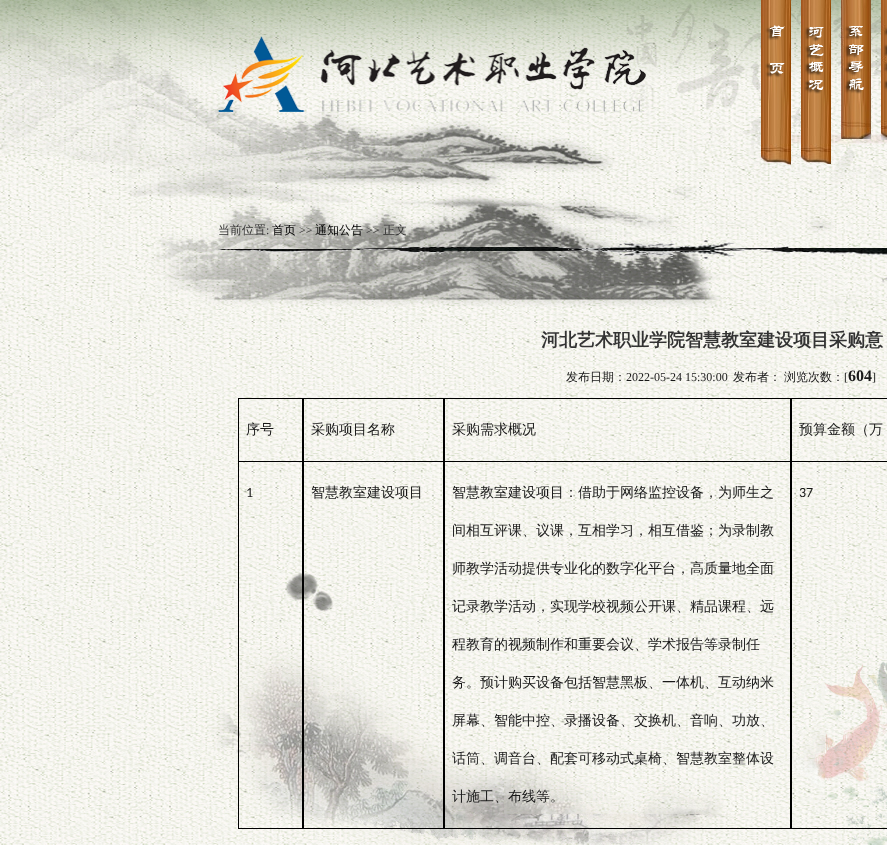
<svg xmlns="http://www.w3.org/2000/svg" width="887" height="845">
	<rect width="100%" height="100%" fill="#FFFFFF" />
	<image x="0" y="0" width="887" height="845" href="assets/img1.png" />
	<image x="218" y="36" width="428" height="76" href="assets/img2.png" />
	<image x="761" y="0" width="30" height="165" href="assets/img3.png" />
	<image x="801" y="0" width="30" height="164" href="assets/img4.png" />
	<image x="841" y="0" width="30" height="139" href="assets/img5.png" />
	<image x="881" y="0" width="6" height="140" href="assets/img6.png" />
	<text x="218" y="234" font-family="WenQuanYi Zen Hei" font-size="12" font-weight="500" fill="#333333">当前位置</text>
	<text x="266" y="234" font-family="Liberation Serif" font-size="12" fill="#333333">:</text>
	<text x="272" y="234" font-family="WenQuanYi Zen Hei" font-size="12" font-weight="500" fill="#000000">首页</text>
	<text x="299" y="234" font-family="Liberation Serif" font-size="12" fill="#333333">&gt;&gt;</text>
	<text x="315" y="234" font-family="WenQuanYi Zen Hei" font-size="12" font-weight="500" fill="#000000">通知公告</text>
	<text x="366" y="234" font-family="Liberation Serif" font-size="12" fill="#333333">&gt;&gt;</text>
	<text x="383" y="234" font-family="WenQuanYi Zen Hei" font-size="12" font-weight="500" fill="#333333">正文</text>
	<image x="218" y="240" width="669" height="19" href="assets/img7.png" />
	<text x="541" y="346" font-family="WenQuanYi Zen Hei" font-size="18" font-weight="700" fill="#333333">河北艺术职业学院智慧教室建设项目采购意</text>
	<text x="566" y="381" font-family="WenQuanYi Zen Hei" font-size="12" font-weight="500" fill="#191919">发布日期：</text>
	<text x="626" y="381" font-family="Liberation Serif" font-size="12" fill="#191919">2022-05-24 15:30:00</text>
	<g font-family="WenQuanYi Zen Hei" font-size="12" font-weight="500" fill="#191919">
		<text x="733" y="381">发布者：</text>
		<text x="784" y="381">浏览次数：</text>
	</g>
	<text x="844" y="381" font-family="Liberation Serif" font-size="12" fill="#191919">[</text>
	<text x="848" y="381" font-family="Liberation Serif" font-size="16" font-weight="700" fill="#191919">604</text>
	<text x="872" y="381" font-family="Liberation Serif" font-size="12" fill="#191919">]</text>
	<rect x="238.5" y="398.5" width="64" height="63" fill="none" stroke="#000000" />
	<text x="246" y="434" font-family="WenQuanYi Zen Hei" font-size="14" font-weight="500" fill="#191919">序号</text>
	<rect x="303.5" y="398.5" width="140" height="63" fill="none" stroke="#000000" />
	<text x="311" y="434" font-family="WenQuanYi Zen Hei" font-size="14" font-weight="500" fill="#191919">采购项目名称</text>
	<rect x="444.5" y="398.5" width="346" height="63" fill="none" stroke="#000000" />
	<text x="452" y="434" font-family="WenQuanYi Zen Hei" font-size="14" font-weight="500" fill="#191919">采购需求概况</text>
	<rect x="791.5" y="398.5" width="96" height="63" fill="none" stroke="#000000" />
	<text x="799" y="434" font-family="WenQuanYi Zen Hei" font-size="14" font-weight="500" fill="#191919">预算金额（万</text>
	<rect x="302" y="462" width="1" height="367" fill="#000000" />
	<rect x="238" y="828" width="65" height="1" fill="#000000" />
	<rect x="238" y="462" width="1" height="367" fill="#000000" />
	<text x="246" y="497" font-family="Carlito" font-size="14" fill="#191919">1</text>
	<rect x="443" y="462" width="1" height="367" fill="#000000" />
	<rect x="303" y="828" width="141" height="1" fill="#000000" />
	<rect x="303" y="462" width="1" height="367" fill="#000000" />
	<text x="311" y="497" font-family="WenQuanYi Zen Hei" font-size="14" font-weight="500" fill="#191919">智慧教室建设项目</text>
	<rect x="790" y="462" width="1" height="367" fill="#000000" />
	<rect x="444" y="828" width="443" height="1" fill="#000000" />
	<rect x="444" y="462" width="1" height="367" fill="#000000" />
	<g font-family="WenQuanYi Zen Hei" font-size="14" font-weight="500" fill="#191919">
		<text x="452" y="497">智慧教室建设项目：借助于网络监控设备，为师生之</text>
		<text x="452" y="535">间相互评课、议课，互相学习，相互借鉴；为录制教</text>
		<text x="452" y="573">师教学活动提供专业化的数字化平台，高质量地全面</text>
		<text x="452" y="611">记录教学活动，实现学校视频公开课、精品课程、远</text>
		<text x="452" y="649">程教育的视频制作和重要会议、学术报告等录制任</text>
		<text x="452" y="687">务。预计购买设备包括智慧黑板、一体机、互动纳米</text>
		<text x="452" y="725">屏幕、智能中控、录播设备、交换机、音响、功放、</text>
		<text x="452" y="763">话筒、调音台、配套可移动式桌椅、智慧教室整体设</text>
		<text x="452" y="801">计施工、布线等。</text>
	</g>
	<rect x="791" y="462" width="1" height="367" fill="#000000" />
	<text x="799" y="497" font-family="Carlito" font-size="14" fill="#191919">37</text>
</svg>
